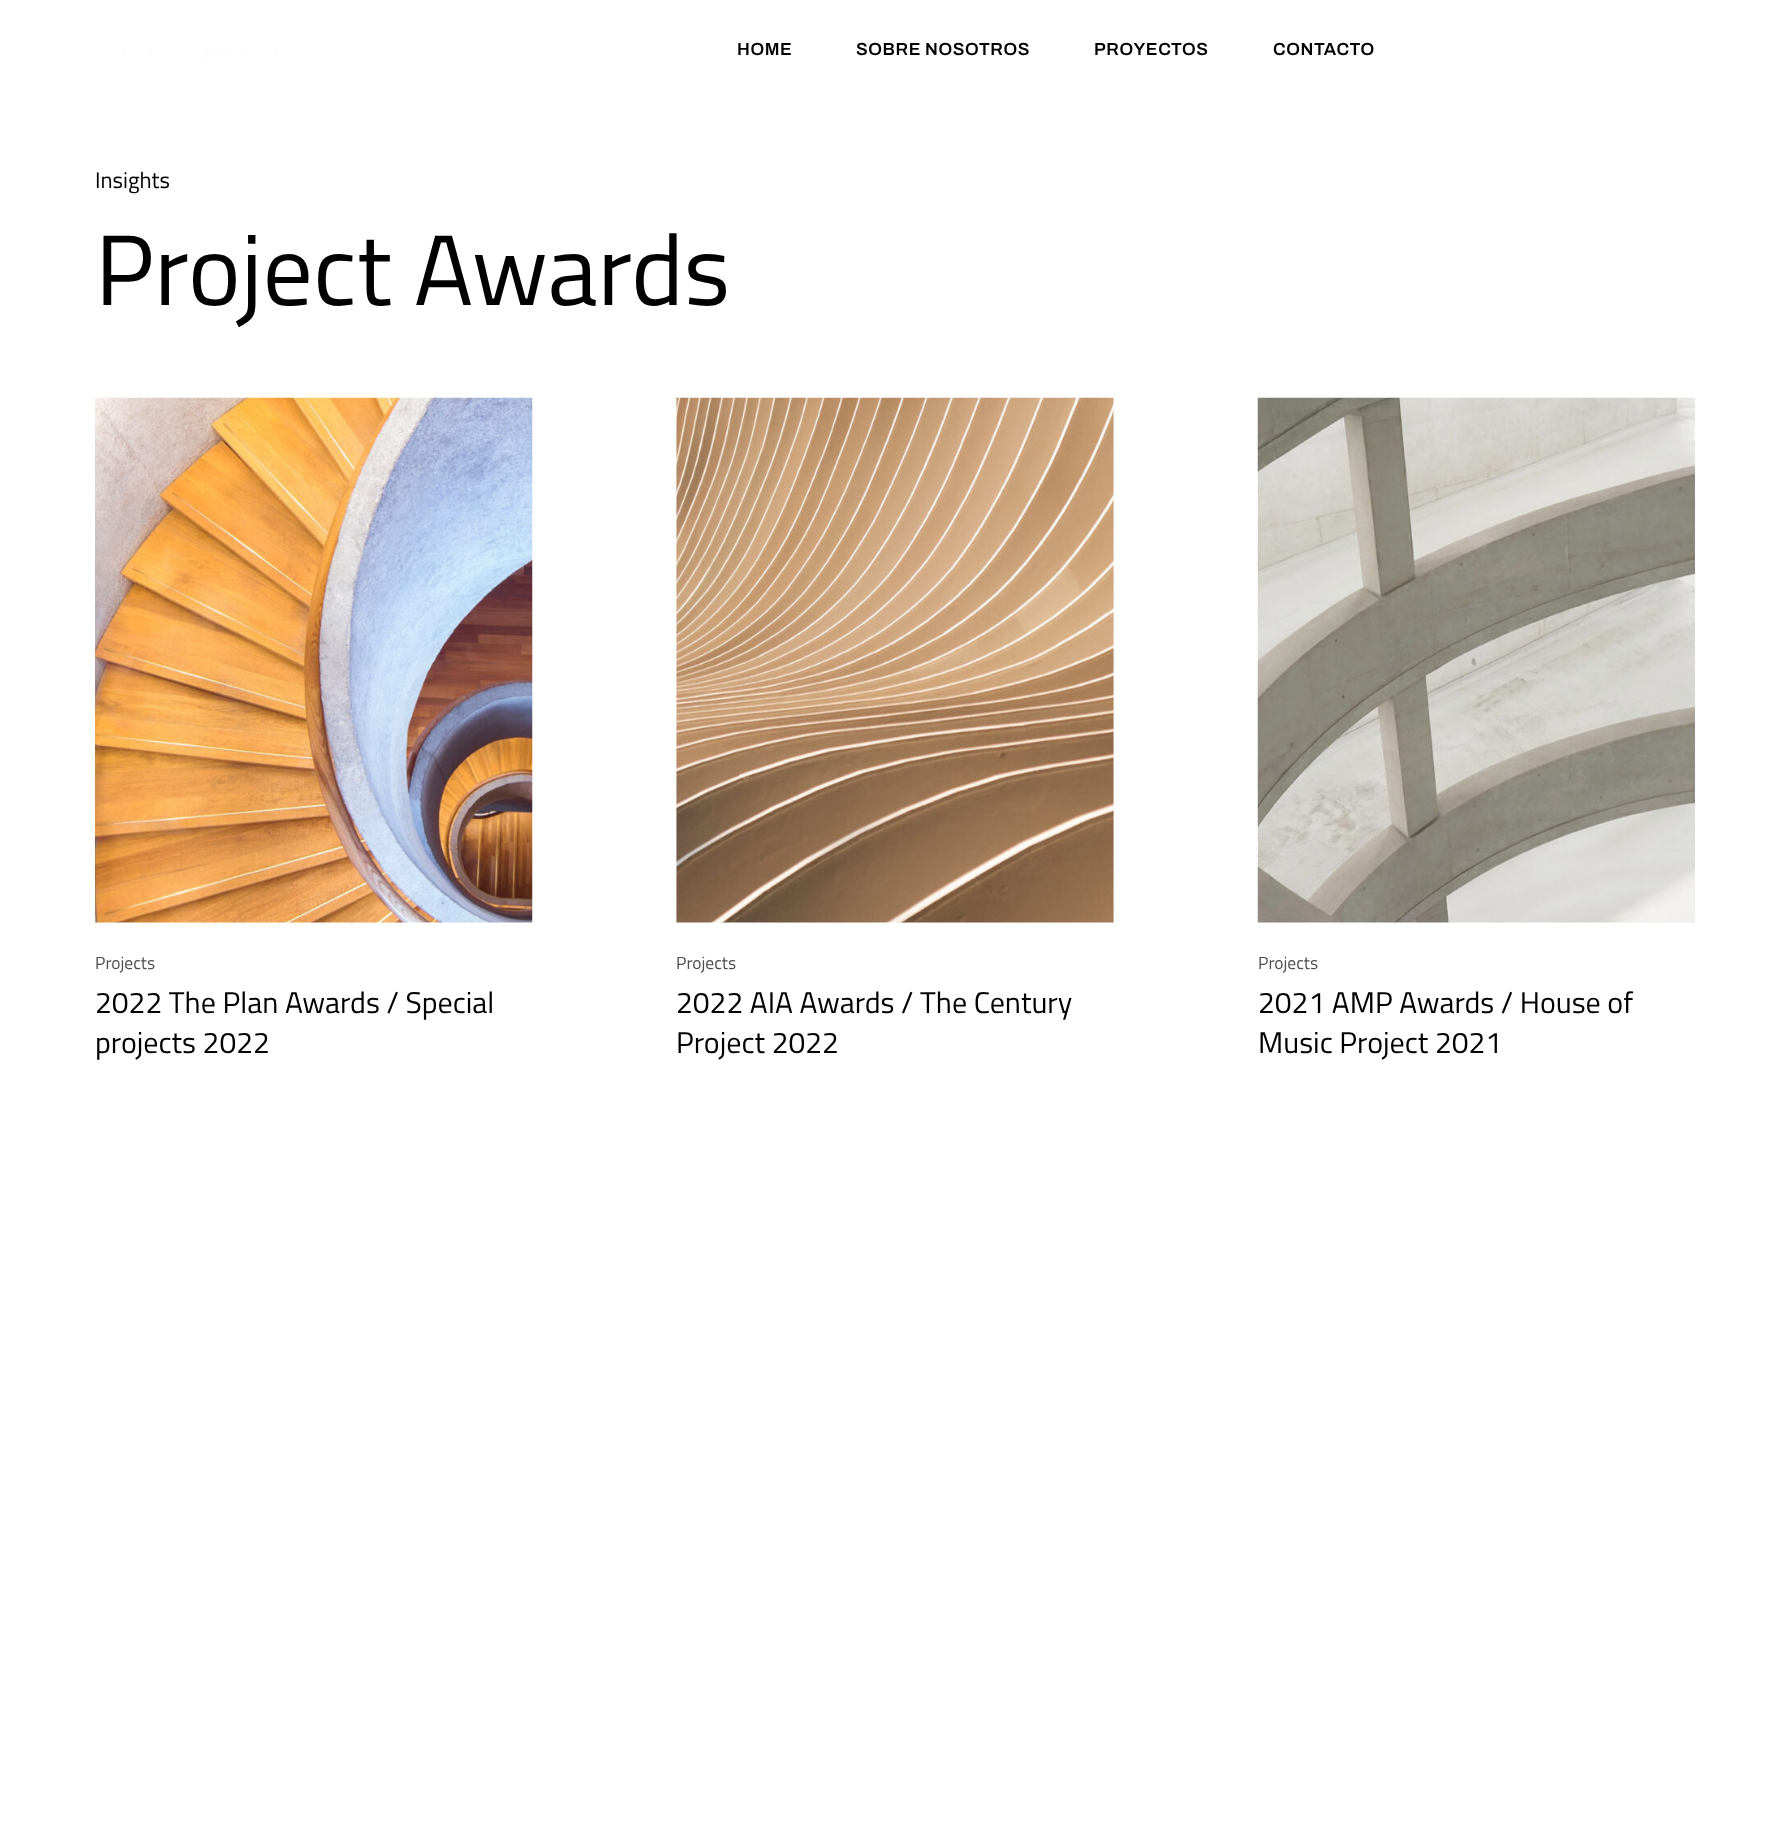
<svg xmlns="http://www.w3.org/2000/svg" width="1789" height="1835">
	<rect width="100%" height="100%" fill="#FFFFFF" />
	<image x="124" y="45" width="152" height="14" href="assets/img1.png" />
	<g font-family="Archivo" font-size="17.5" font-weight="600" letter-spacing="0.6" fill="#000000">
		<text x="737" y="55">HOME</text>
		<text x="856" y="55">SOBRE NOSOTROS</text>
		<text x="1094" y="55">PROYECTOS</text>
		<text x="1273" y="55">CONTACTO</text>
	</g>
	<text x="95" y="188" font-family="Titillium Web" font-size="22.5" fill="#000000">Insights</text>
	<text x="95" y="305" font-family="Titillium Web" font-size="100" fill="#000000">Project Awards</text>
	<image x="95" y="397" width="438" height="526" href="assets/img2.png" />
	<text x="95" y="969" font-family="Titillium Web" font-size="17.5" fill="#4E4E4E">Projects</text>
	<g font-family="Titillium Web" font-size="30" fill="#000000">
		<text x="95" y="1013">2022 The Plan Awards / Special</text>
		<text x="95" y="1053">projects 2022</text>
	</g>
	<image x="676" y="397" width="438" height="526" href="assets/img3.png" />
	<text x="676" y="969" font-family="Titillium Web" font-size="17.5" fill="#4E4E4E">Projects</text>
	<g font-family="Titillium Web" font-size="30" fill="#000000">
		<text x="676" y="1013">2022 AIA Awards / The Century</text>
		<text x="676" y="1053">Project 2022</text>
	</g>
	<image x="1257" y="397" width="438" height="526" href="assets/img4.png" />
	<text x="1258" y="969" font-family="Titillium Web" font-size="17.5" fill="#4E4E4E">Projects</text>
	<g font-family="Titillium Web" font-size="30" fill="#000000">
		<text x="1258" y="1013">2021 AMP Awards / House of</text>
		<text x="1258" y="1053">Music Project 2021</text>
	</g>
</svg>
